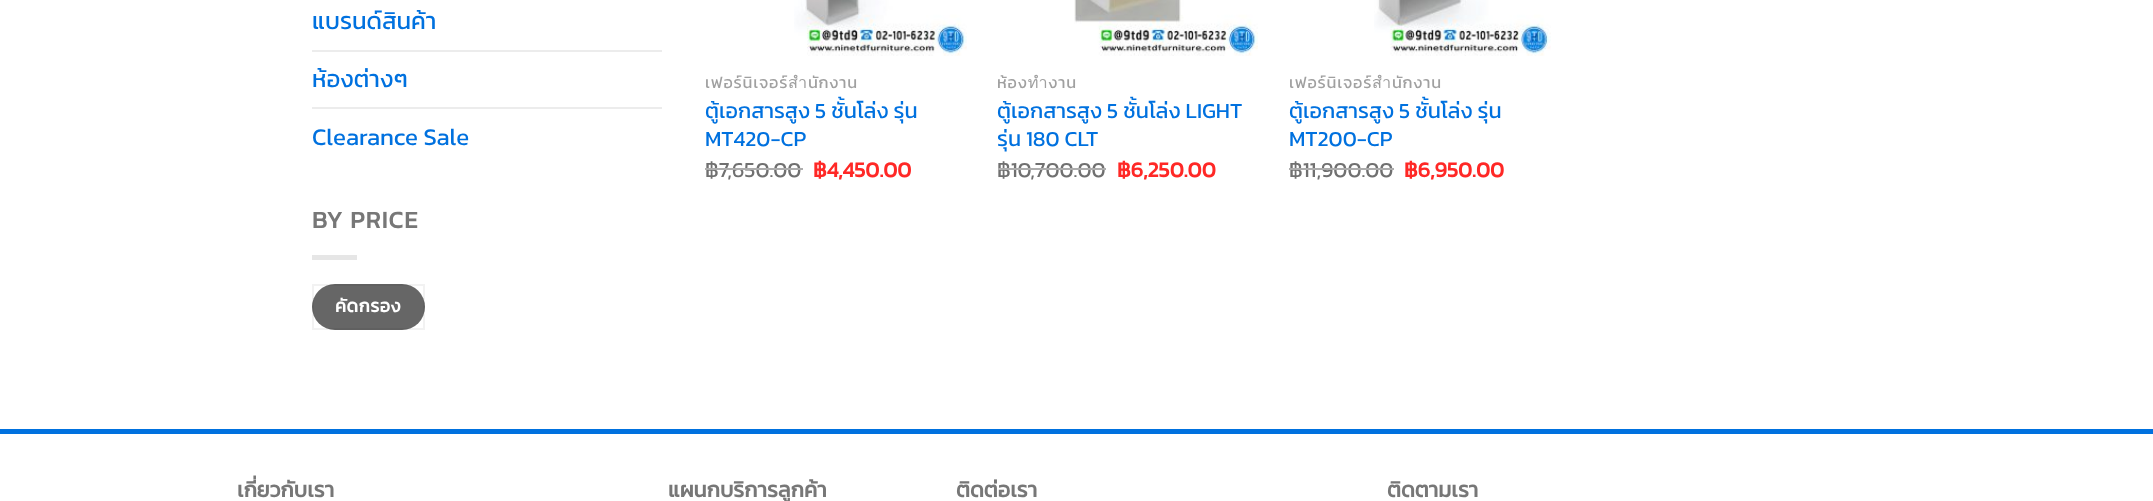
<svg xmlns="http://www.w3.org/2000/svg" width="2153" height="501">
	<defs>
		<clipPath id="clip1"><rect x="998" y="74" width="261" height="19" /></clipPath>
	</defs>
	<rect width="100%" height="100%" fill="#FFFFFF" />
	<text x="312" y="29" font-family="Kanit" font-size="24" fill="#0071DF">แบรนด์สินค้า</text>
	<rect x="312" y="50" width="350" height="2" fill="#ECECEC" />
	<text x="312" y="87" font-family="Kanit" font-size="24" fill="#0071DF">ห้องต่างๆ</text>
	<rect x="312" y="107" width="350" height="2" fill="#ECECEC" />
	<text x="312" y="145" font-family="Kanit" font-size="24" fill="#0071DF">Clearance Sale</text>
	<text x="312" y="228" font-family="Kanit" font-size="24" font-weight="700" letter-spacing="1.25" fill="#777777">BY PRICE</text>
	<rect x="312" y="255" width="45" height="5" fill="#E6E6E6" />
	<rect x="312" y="284" width="113" height="46" rx="23" fill="#666666" />
	<rect x="313" y="285" width="111" height="44" fill="none" stroke="#000000" stroke-opacity="0.05" stroke-width="2" />
	<text x="335" y="312" font-family="Kanit" font-size="18" font-weight="700" letter-spacing="0.5" fill="#FFFFFF">คัดกรอง</text>
	<image x="794" y="0" width="173" height="56" href="assets/img1.png" />
	<text x="705" y="88" font-family="Kanit" font-size="16.25" letter-spacing="0.8" fill="#A0A0A0">เฟอร์นิเจอร์สำนักงาน</text>
	<g font-family="Kanit" font-size="21.6" fill="#0071DF">
		<text x="705" y="118">ตู้เอกสารสูง 5 ชั้นโล่ง รุ่น</text>
		<text x="705" y="146">MT420-CP</text>
	</g>
	<text x="705" y="177" font-family="Kanit" font-size="21.6" fill="#707070">฿7,650.00</text>
	<rect x="705" y="168" width="98" height="2" fill="#ADADAD" />
	<text x="813" y="177" font-family="Kanit" font-size="21.6" font-weight="700" fill="#FF2826">฿4,450.00</text>
	<image x="1074" y="0" width="184" height="56" href="assets/img2.png" />
	<g clip-path="url(#clip1)">
		<text x="997" y="88" font-family="Kanit" font-size="16.25" letter-spacing="0.8" fill="#A0A0A0">ห้องทำงาน</text>
	</g>
	<g font-family="Kanit" font-size="21.6" fill="#0071DF">
		<text x="997" y="118">ตู้เอกสารสูง 5 ชั้นโล่ง LIGHT</text>
		<text x="997" y="146">รุ่น 180 CLT</text>
	</g>
	<text x="997" y="177" font-family="Kanit" font-size="21.6" fill="#707070">฿10,700.00</text>
	<rect x="998" y="168" width="108" height="2" fill="#ADADAD" />
	<text x="1117" y="177" font-family="Kanit" font-size="21.6" font-weight="700" fill="#FF2826">฿6,250.00</text>
	<image x="1374" y="0" width="177" height="56" href="assets/img3.png" />
	<text x="1289" y="88" font-family="Kanit" font-size="16.25" letter-spacing="0.8" fill="#A0A0A0">เฟอร์นิเจอร์สำนักงาน</text>
	<g font-family="Kanit" font-size="21.6" fill="#0071DF">
		<text x="1289" y="118">ตู้เอกสารสูง 5 ชั้นโล่ง รุ่น</text>
		<text x="1289" y="146">MT200-CP</text>
	</g>
	<text x="1289" y="177" font-family="Kanit" font-size="21.6" fill="#707070">฿11,900.00</text>
	<rect x="1289" y="168" width="105" height="2" fill="#ADADAD" />
	<text x="1404" y="177" font-family="Kanit" font-size="21.6" font-weight="700" fill="#FF2826">฿6,950.00</text>
	<rect x="0" y="429" width="2153" height="5" fill="#0071DF" />
	<g font-family="Kanit" font-size="21.6" font-weight="700" fill="#777777">
		<text x="237" y="497">เกี่ยวกับเรา</text>
		<text x="668" y="497">แผนกบริการลูกค้า</text>
		<text x="956" y="497">ติดต่อเรา</text>
		<text x="1387" y="497">ติดตามเรา</text>
	</g>
</svg>
